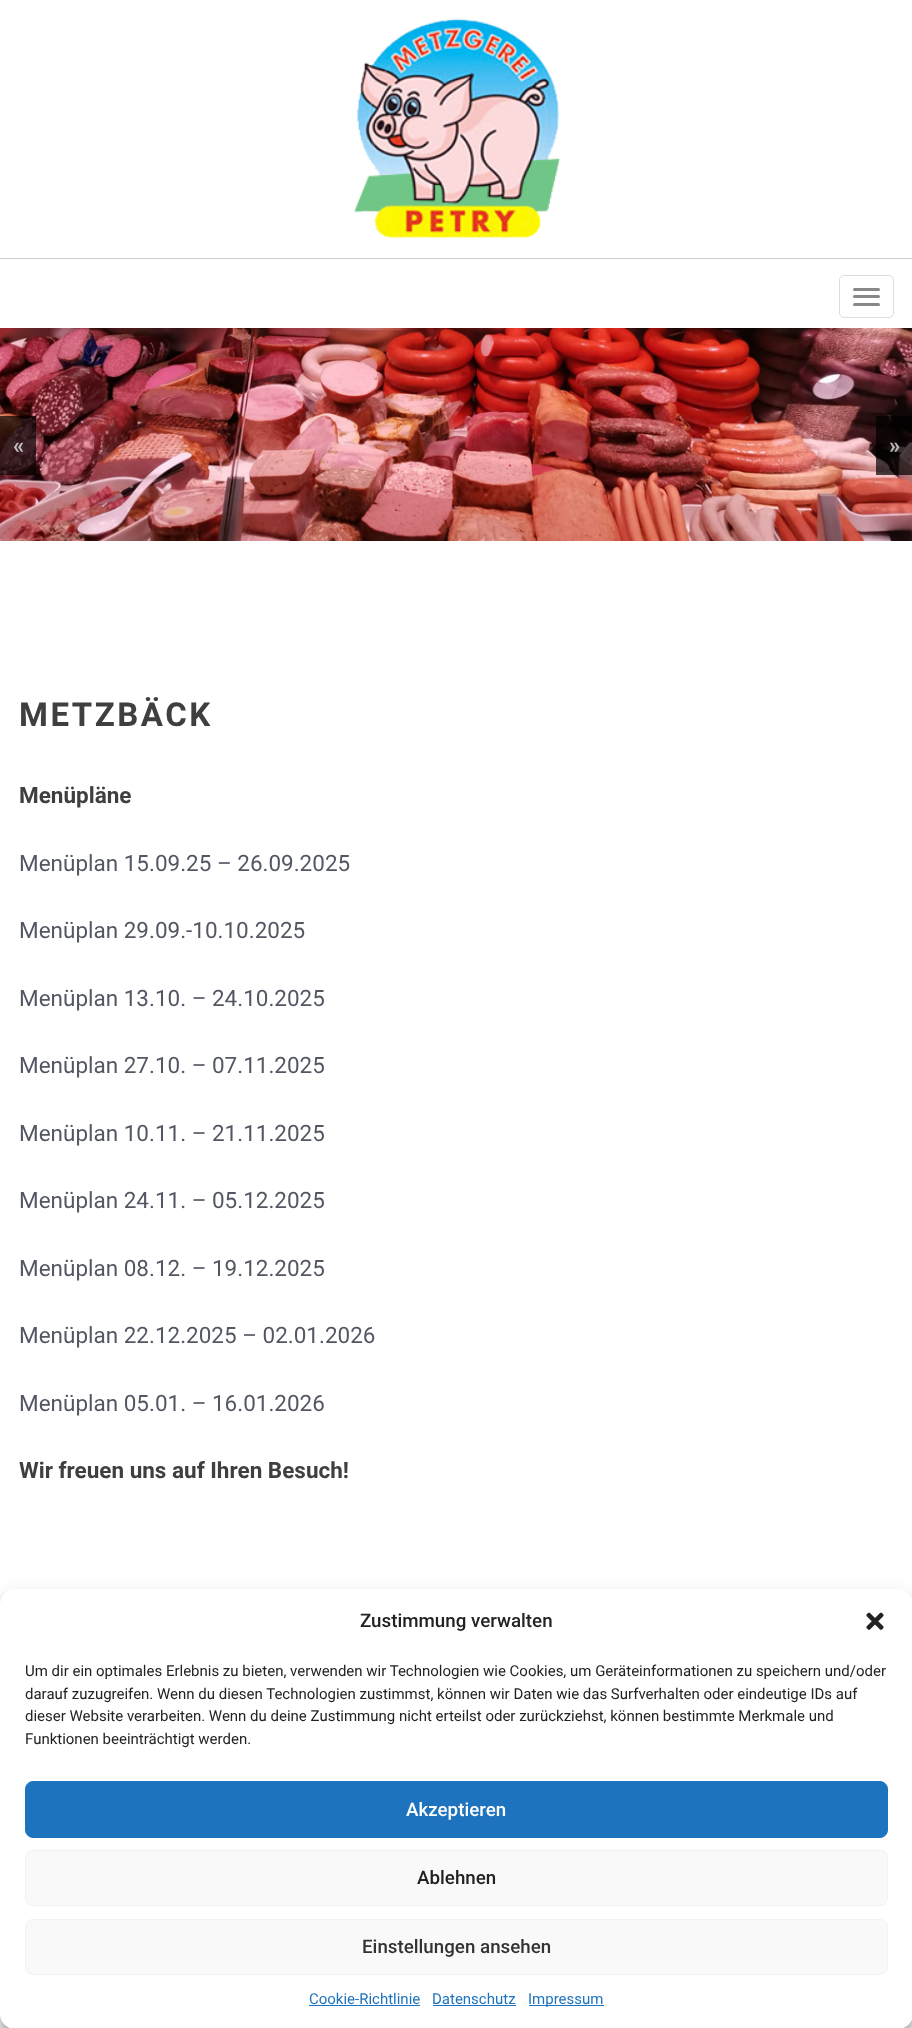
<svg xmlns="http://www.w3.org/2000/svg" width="912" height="2028">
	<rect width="100%" height="100%" fill="#FFFFFF" />
	<rect x="0" y="258" width="912" height="1" fill="#CCCCCC" />
	<image x="353" y="18" width="208" height="220" href="assets/img1.png" />
	<rect x="839.5" y="275.5" width="54" height="42" rx="4.5" fill="none" stroke="#DDDDDD" />
	<rect x="853" y="288" width="27" height="3" rx="1.5" fill="#888888" />
	<rect x="853" y="295" width="27" height="3" rx="1.5" fill="#888888" />
	<rect x="853" y="303" width="27" height="3" rx="1.5" fill="#888888" />
	<image x="0" y="328" width="912" height="213" href="assets/img2.png" />
	<rect x="0" y="416" width="36" height="59" fill="#000000" fill-opacity="0.7" />
	<text x="13" y="453" font-family="Roboto" font-size="22.5" font-weight="700" fill="#C3BCBD">«</text>
	<rect x="876" y="416" width="36" height="59" fill="#000000" fill-opacity="0.7" />
	<text x="889" y="453" font-family="Roboto" font-size="22.5" font-weight="700" fill="#BBB9B9">»</text>
	<text x="19" y="726" font-family="Roboto" font-size="33" font-weight="700" letter-spacing="2.5" fill="#3F3F3F">METZBÄCK</text>
	<text x="19" y="803" font-family="Roboto" font-size="22.5" font-weight="700" fill="#3F3F3F">Menüpläne</text>
	<g font-family="Roboto" font-size="22.5" fill="#535763">
		<text x="19" y="871">Menüplan 15.09.25 – 26.09.2025</text>
		<text x="19" y="938">Menüplan 29.09.-10.10.2025</text>
		<text x="19" y="1006">Menüplan 13.10. – 24.10.2025</text>
		<text x="19" y="1073">Menüplan 27.10. – 07.11.2025</text>
		<text x="19" y="1141">Menüplan 10.11. – 21.11.2025</text>
		<text x="19" y="1208">Menüplan 24.11. – 05.12.2025</text>
		<text x="19" y="1276">Menüplan 08.12. – 19.12.2025</text>
		<text x="19" y="1343">Menüplan 22.12.2025 – 02.01.2026</text>
		<text x="19" y="1411">Menüplan 05.01. – 16.01.2026</text>
	</g>
	<text x="19" y="1478" font-family="Roboto" font-size="22.5" font-weight="700" fill="#3F3F3F">Wir freuen uns auf Ihren Besuch!</text>
	<rect x="0" y="1596" width="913" height="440" rx="15" fill="#000000" fill-opacity="0.23" filter="blur(4px)" />
	<rect x="0" y="1601" width="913" height="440" rx="15" fill="#000000" fill-opacity="0.19" filter="blur(12.5px)" />
	<rect x="0" y="1589" width="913" height="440" rx="15" fill="#FFFFFF" />
	<text x="360" y="1627" font-family="Roboto" font-size="18.75" font-weight="500" fill="#222222">Zustimmung verwalten</text>
	<image x="866" y="1612" width="18" height="18" href="assets/img3.png" />
	<g font-family="Roboto" font-size="15" fill="#222222">
		<text x="25" y="1676">Um dir ein optimales Erlebnis zu bieten, verwenden wir Technologien wie Cookies, um Geräteinformationen zu speichern und/oder</text>
		<text x="25" y="1699">darauf zuzugreifen. Wenn du diesen Technologien zustimmst, können wir Daten wie das Surfverhalten oder eindeutige IDs auf</text>
		<text x="25" y="1721">dieser Website verarbeiten. Wenn du deine Zustimmung nicht erteilst oder zurückziehst, können bestimmte Merkmale und</text>
		<text x="25" y="1744">Funktionen beeinträchtigt werden.</text>
	</g>
	<rect x="25.5" y="1781.5" width="862" height="56" rx="7.5" fill="#1E73BE" stroke="#1E73BE" />
	<text x="406" y="1816" font-family="Roboto" font-size="18.75" font-weight="500" fill="#FFFFFF">Akzeptieren</text>
	<rect x="25.5" y="1850.5" width="862" height="55" rx="7.5" fill="#F9F9F9" stroke="#F2F2F2" />
	<text x="417" y="1884" font-family="Roboto" font-size="18.75" font-weight="500" fill="#222222">Ablehnen</text>
	<rect x="25.5" y="1919.5" width="862" height="55" rx="7.5" fill="#F9F9F9" stroke="#F2F2F2" />
	<text x="362" y="1953" font-family="Roboto" font-size="18.75" font-weight="500" fill="#333333">Einstellungen ansehen</text>
	<text x="309" y="2004" font-family="Roboto" font-size="15" fill="#1E73BE">Cookie-Richtlinie</text>
	<rect x="309" y="2005" width="111" height="1" fill="#1E73BE" />
	<text x="432" y="2004" font-family="Roboto" font-size="15" fill="#1E73BE">Datenschutz</text>
	<rect x="433" y="2005" width="83" height="1" fill="#1E73BE" />
	<rect x="529" y="2005" width="75" height="1" fill="#1E73BE" />
	<text x="528" y="2004" font-family="Roboto" font-size="15" fill="#1E73BE">Impressum</text>
</svg>
